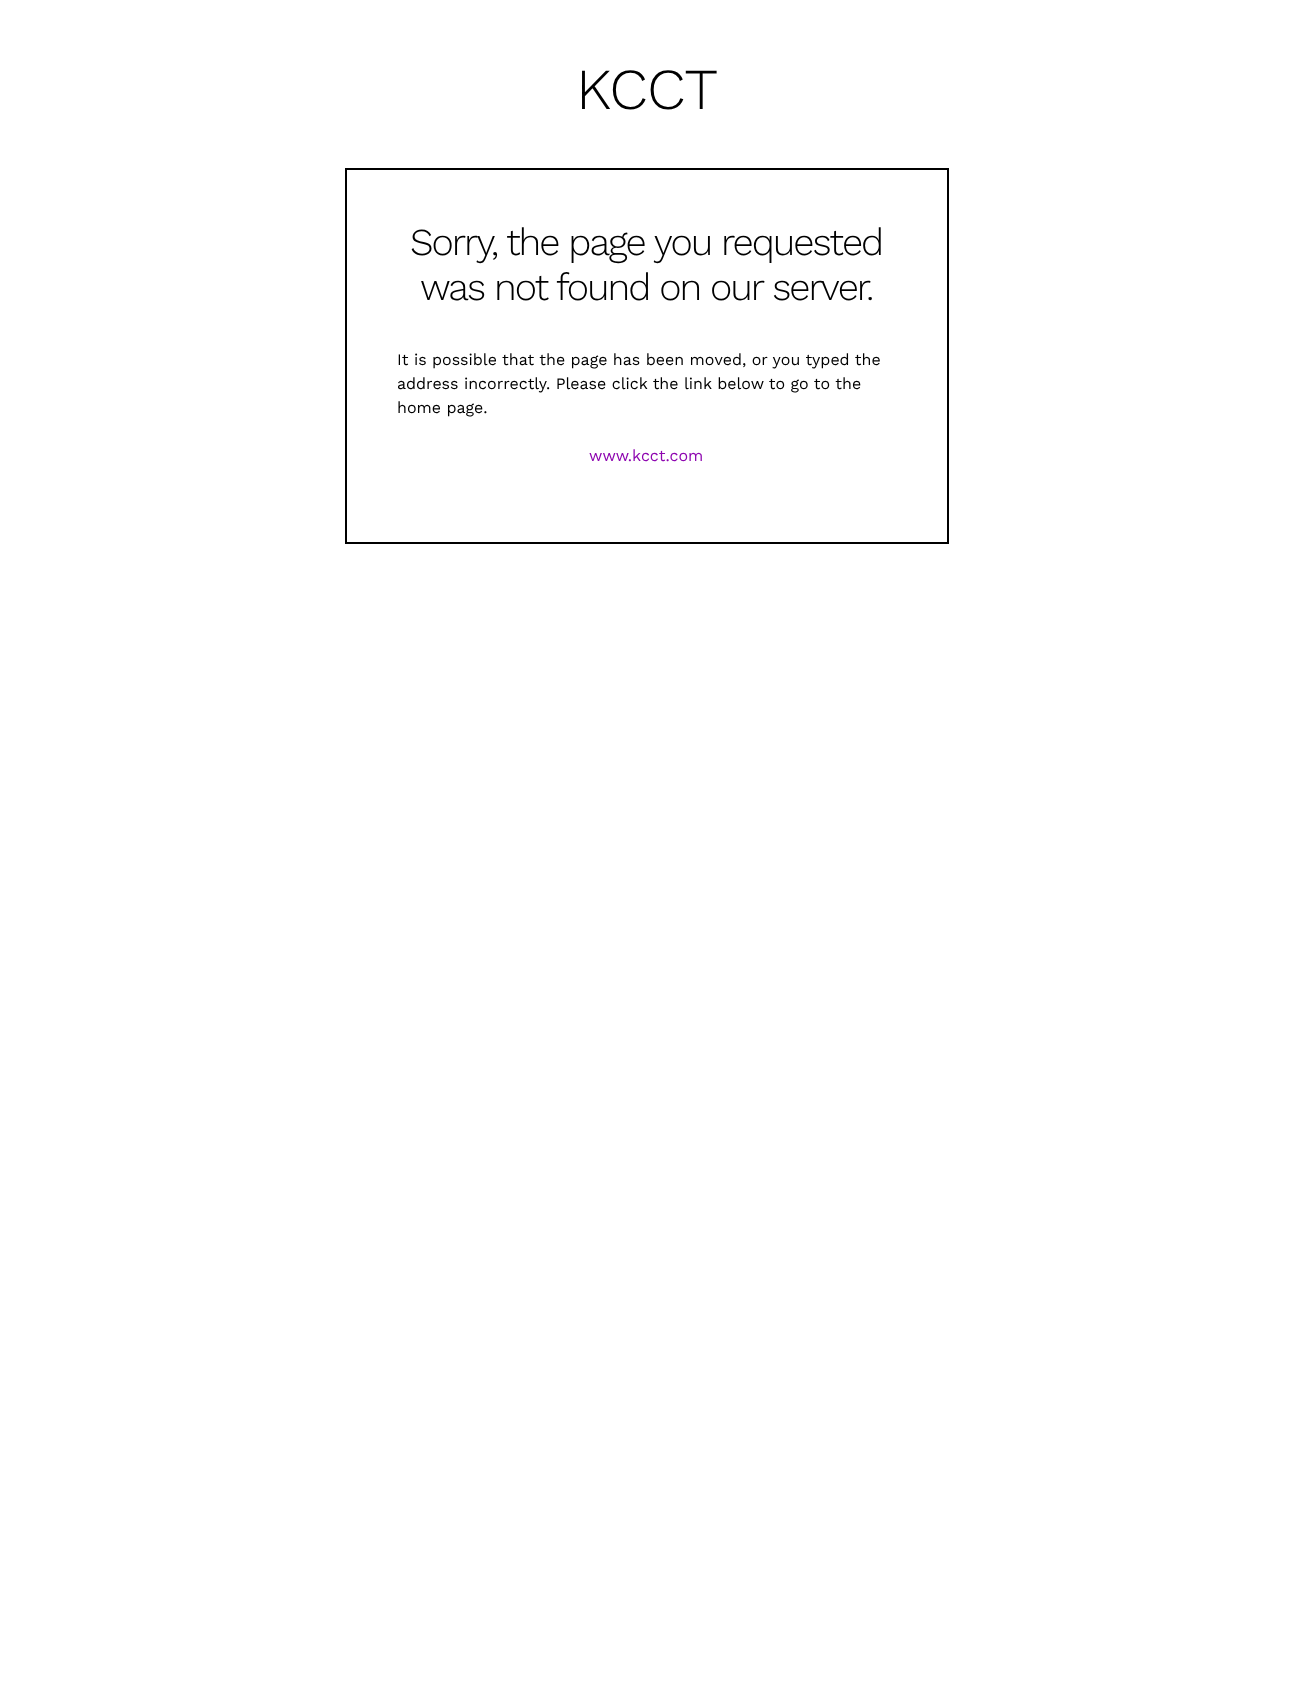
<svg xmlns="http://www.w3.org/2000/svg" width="1293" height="1693">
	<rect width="100%" height="100%" fill="#FFFFFF" />
	<text x="576" y="109" font-family="Work Sans" font-size="58" font-weight="300" letter-spacing="-1" fill="#000000">KCCT</text>
	<rect x="346" y="169" width="602" height="374" fill="none" stroke="#000000" stroke-width="2" />
	<g font-family="Work Sans" font-size="38" font-weight="300" letter-spacing="-2" fill="#000000">
		<text x="410" y="255">Sorry, the page you requested</text>
		<text x="420" y="300">was not found on our server.</text>
	</g>
	<g font-family="Work Sans" font-size="16" fill="#000000">
		<text x="397" y="365">It is possible that the page has been moved, or you typed the</text>
		<text x="397" y="389">address incorrectly. Please click the link below to go to the</text>
		<text x="397" y="413">home page.</text>
	</g>
	<text x="589" y="461" font-family="Work Sans" font-size="16" fill="#8E06B0">www.kcct.com</text>
</svg>
